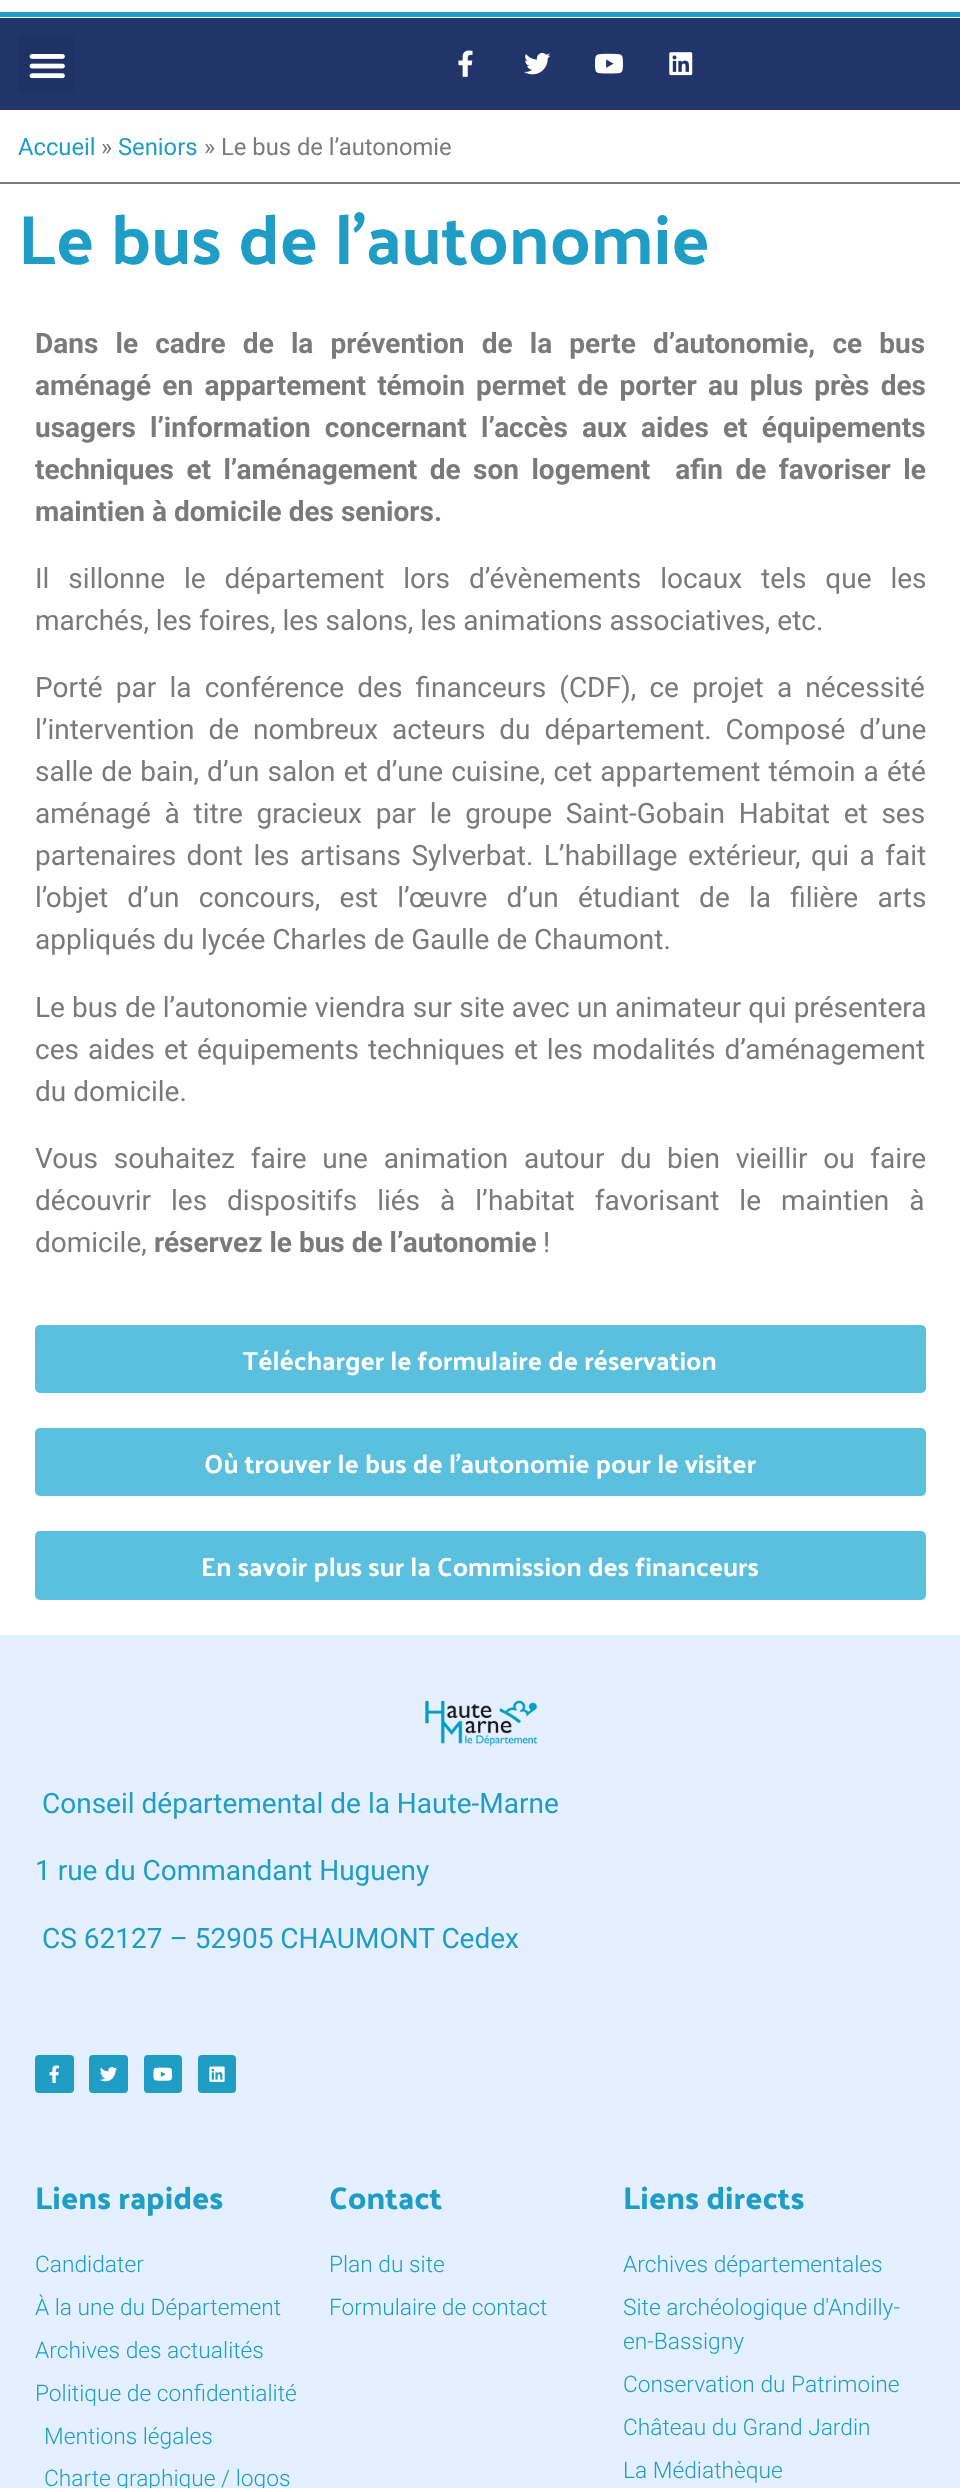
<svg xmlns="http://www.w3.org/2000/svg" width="960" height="2488">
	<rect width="100%" height="100%" fill="#FFFFFF" />
	<rect x="0" y="18" width="960" height="92" fill="#21356A" />
	<rect x="0" y="12" width="960" height="5" fill="#1F9DC5" />
	<rect x="18" y="35" width="57" height="58" rx="5" fill="#1F3265" />
	<image x="29" y="54" width="36" height="25" href="assets/img1.png" />
	<image x="458" y="50" width="15" height="27" href="assets/img2.png" />
	<image x="524" y="53" width="27" height="22" href="assets/img3.png" />
	<image x="595" y="53" width="28" height="21" href="assets/img4.png" />
	<image x="669" y="52" width="24" height="24" href="assets/img5.png" />
	<rect x="0" y="182" width="960" height="2" fill="#7A7A7A" />
	<text x="18" y="155" font-family="Roboto" font-size="23.75" fill="#1F9DC5">Accueil</text>
	<text x="101" y="155" font-family="Roboto" font-size="23.75" fill="#7A7A7A">»</text>
	<text x="118" y="155" font-family="Roboto" font-size="23.75" fill="#1F9DC5">Seniors</text>
	<text x="204" y="155" font-family="Roboto" font-size="23.75" fill="#7A7A7A">» Le bus de l’autonomie</text>
	<text x="18" y="264" font-family="Palanquin Dark" font-size="70" fill="#1F9DC5">Le bus de l’autonomie</text>
	<g font-family="Roboto" font-size="28" font-weight="700" fill="#7A7A7A">
		<text x="35" y="353" word-spacing="10.25">Dans le cadre de la prévention de la perte d’autonomie, ce bus</text>
		<text x="35" y="395" word-spacing="4.25">aménagé en appartement témoin permet de porter au plus près des</text>
		<text x="35" y="437" word-spacing="7.25">usagers l’information concernant l’accès aux aides et équipements</text>
		<text x="35" y="479" word-spacing="5.5" xml:space="preserve">techniques et l’aménagement de son logement  afin de favoriser le</text>
		<text x="35" y="521">maintien à domicile des seniors.</text>
	</g>
	<g font-family="Roboto" font-size="28" fill="#7A7A7A">
		<text x="35" y="588" word-spacing="12">Il sillonne le département lors d’évènements locaux tels que les</text>
		<text x="35" y="630">marchés, les foires, les salons, les animations associatives, etc.</text>
		<text x="35" y="697" word-spacing="6.25">Porté par la conférence des financeurs (CDF), ce projet a nécessité</text>
		<text x="35" y="739" word-spacing="7">l’intervention de nombreux acteurs du département. Composé d’une</text>
		<text x="35" y="781" word-spacing="1.25">salle de bain, d’un salon et d’une cuisine, cet appartement témoin a été</text>
		<text x="35" y="823" word-spacing="6.75">aménagé à titre gracieux par le groupe Saint-Gobain Habitat et ses</text>
		<text x="35" y="865" word-spacing="3.5">partenaires dont les artisans Sylverbat. L’habillage extérieur, qui a fait</text>
		<text x="35" y="907" word-spacing="12.25">l’objet d’un concours, est l’œuvre d’un étudiant de la filière arts</text>
		<text x="35" y="949">appliqués du lycée Charles de Gaulle de Chaumont.</text>
		<text x="35" y="1017" word-spacing="0.25">Le bus de l’autonomie viendra sur site avec un animateur qui présentera</text>
		<text x="35" y="1059" word-spacing="2">ces aides et équipements techniques et les modalités d’aménagement</text>
		<text x="35" y="1101">du domicile.</text>
		<text x="35" y="1168" word-spacing="8.75">Vous souhaitez faire une animation autour du bien vieillir ou faire</text>
		<text x="35" y="1210" word-spacing="13">découvrir les dispositifs liés à l’habitat favorisant le maintien à</text>
		<text x="35" y="1252">domicile,</text>
	</g>
	<text x="154" y="1252" font-family="Roboto" font-size="28" font-weight="700" fill="#7A7A7A">réservez le bus de l’autonomie</text>
	<text x="543" y="1252" font-family="Roboto" font-size="28" fill="#7A7A7A">!</text>
	<rect x="35" y="1325" width="891" height="68" rx="5" fill="#5BC0DE" />
	<text x="243" y="1370" font-family="Palanquin Dark" font-size="26.25" fill="#FFFFFF">Télécharger le formulaire de réservation</text>
	<rect x="35" y="1428" width="891" height="68" rx="5" fill="#5BC0DE" />
	<text x="204" y="1473" font-family="Palanquin Dark" font-size="26.25" fill="#FFFFFF">Où trouver le bus de l'autonomie pour le visiter</text>
	<rect x="35" y="1531" width="891" height="69" rx="5" fill="#5BC0DE" />
	<text x="201" y="1576" font-family="Palanquin Dark" font-size="26.25" fill="#FFFFFF">En savoir plus sur la Commission des financeurs</text>
	<rect x="0" y="1635" width="960" height="853" fill="#E4F0FF" />
	<image x="425" y="1700" width="113" height="47" href="assets/img6.png" />
	<g font-family="Roboto" font-size="28" fill="#1F9DC5">
		<text x="42" y="1813">Conseil départemental de la Haute-Marne</text>
		<text x="35" y="1880">1 rue du Commandant Hugueny</text>
		<text x="42" y="1948">CS 62127 – 52905 CHAUMONT Cedex</text>
	</g>
	<rect x="35" y="2055" width="39" height="38" rx="4" fill="#1F9DC5" />
	<image x="49" y="2065" width="10" height="18" href="assets/img7.png" />
	<rect x="89" y="2055" width="39" height="38" rx="4" fill="#1F9DC5" />
	<image x="100" y="2067" width="18" height="15" href="assets/img8.png" />
	<rect x="144" y="2055" width="38" height="38" rx="4" fill="#1F9DC5" />
	<image x="153" y="2067" width="20" height="14" href="assets/img9.png" />
	<rect x="198" y="2055" width="38" height="38" rx="4" fill="#1F9DC5" />
	<image x="209" y="2066" width="16" height="16" href="assets/img10.png" />
	<text x="35" y="2209" font-family="Palanquin Dark" font-size="31.5" font-weight="500" fill="#1F9DC5">Liens rapides</text>
	<g font-family="Roboto" font-size="22.75" font-weight="300" fill="#1F9DC5">
		<text x="35" y="2272">Candidater</text>
		<text x="35" y="2315">À la une du Département</text>
		<text x="35" y="2358">Archives des actualités</text>
		<text x="35" y="2401">Politique de confidentialité</text>
		<text x="44" y="2444">Mentions légales</text>
		<text x="44" y="2486">Charte graphique / logos</text>
	</g>
	<text x="329" y="2209" font-family="Palanquin Dark" font-size="31.5" font-weight="500" fill="#1F9DC5">Contact</text>
	<g font-family="Roboto" font-size="22.75" font-weight="300" fill="#1F9DC5">
		<text x="329" y="2272">Plan du site</text>
		<text x="329" y="2315">Formulaire de contact</text>
	</g>
	<text x="623" y="2209" font-family="Palanquin Dark" font-size="31.5" font-weight="500" fill="#1F9DC5">Liens directs</text>
	<g font-family="Roboto" font-size="22.75" font-weight="300" fill="#1F9DC5">
		<text x="623" y="2272">Archives départementales</text>
		<text x="623" y="2315">Site archéologique d'Andilly-</text>
		<text x="623" y="2349">en-Bassigny</text>
		<text x="623" y="2392">Conservation du Patrimoine</text>
		<text x="623" y="2435">Château du Grand Jardin</text>
		<text x="623" y="2478">La Médiathèque</text>
	</g>
</svg>
